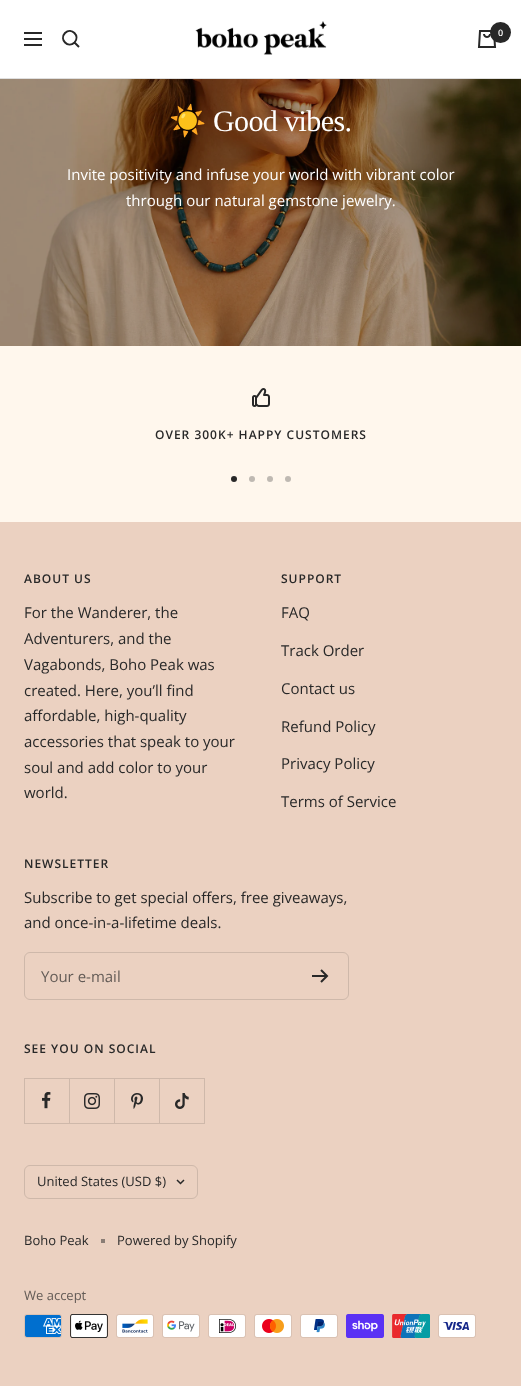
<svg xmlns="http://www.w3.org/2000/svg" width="521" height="1386">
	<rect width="100%" height="100%" fill="#FFF7ED" />
	<rect x="0" y="78" width="521" height="1" fill="#DFDFDF" />
	<rect x="0" y="0" width="521" height="78" fill="#FFFFFF" />
	<path d="M24 33H42M24 45H42ZM24 39H42ZM74.5 42.5C80.5 36 71.5 27 65 33C59 39.5 68 48.5 74.5 42.5ZM74.5 42.5L79 47" fill="none" stroke="#282828" stroke-width="2" />
	<image x="195" y="21" width="132" height="34" href="assets/img1.png" />
	<image x="477" y="30" width="20" height="18" href="assets/img2.png" />
	<circle cx="500.5" cy="32.5" r="10.5" fill="#282828" />
	<text x="498" y="36" font-family="Open Sans" font-size="9" font-weight="600" fill="#FFFFFF">0</text>
	<image x="0" y="79" width="521" height="267" href="assets/img3.png" />
	<text x="169" y="131" font-family="Noto Color Emoji" font-size="30" letter-spacing="-0.6" fill="#FFFFFF">☀️</text>
	<text x="213" y="131" font-family="Liberation Serif" font-size="30" letter-spacing="-0.6" fill="#FFFFFF">Good vibes.</text>
	<g font-family="Open Sans" font-size="15" fill="#FFFFFF">
		<text x="67" y="180">Invite positivity and infuse your world with vibrant color</text>
		<text x="126" y="206">through our natural gemstone jewelry.</text>
	</g>
	<image x="252" y="388" width="18" height="19" href="assets/img4.png" />
	<text x="155" y="439" font-family="Open Sans" font-size="12" font-weight="600" letter-spacing="1" fill="#282828">OVER 300K+ HAPPY CUSTOMERS</text>
	<circle cx="234" cy="479" r="3" fill="#282828" />
	<circle cx="252" cy="479" r="3" fill="#BFB9B2" />
	<circle cx="270" cy="479" r="3" fill="#BFB9B2" />
	<circle cx="288" cy="479" r="3" fill="#BFB9B2" />
	<rect x="0" y="522" width="521" height="864" fill="#EBD1C1" />
	<text x="24" y="583" font-family="Open Sans" font-size="12" font-weight="600" letter-spacing="1" fill="#282828">ABOUT US</text>
	<g font-family="Open Sans" font-size="15" fill="#282828">
		<text x="24" y="618">For the Wanderer, the</text>
		<text x="24" y="644">Adventurers, and the</text>
		<text x="24" y="670">Vagabonds, Boho Peak was</text>
		<text x="24" y="696">created. Here, you’ll find</text>
		<text x="24" y="721">affordable, high-quality</text>
		<text x="24" y="747">accessories that speak to your</text>
		<text x="24" y="773">soul and add color to your</text>
		<text x="24" y="798">world.</text>
	</g>
	<text x="281" y="583" font-family="Open Sans" font-size="12" font-weight="600" letter-spacing="1" fill="#282828">SUPPORT</text>
	<g font-family="Open Sans" font-size="15" fill="#282828">
		<text x="281" y="618">FAQ</text>
		<text x="281" y="656">Track Order</text>
		<text x="281" y="694">Contact us</text>
		<text x="281" y="732">Refund Policy</text>
		<text x="281" y="769">Privacy Policy</text>
		<text x="281" y="807">Terms of Service</text>
	</g>
	<text x="24" y="868" font-family="Open Sans" font-size="12" font-weight="600" letter-spacing="1" fill="#282828">NEWSLETTER</text>
	<g font-family="Open Sans" font-size="15" fill="#282828">
		<text x="24" y="903">Subscribe to get special offers, free giveaways,</text>
		<text x="24" y="928">and once-in-a-lifetime deals.</text>
	</g>
	<rect x="24.5" y="952.5" width="324" height="47" rx="5.5" fill="none" stroke="#CEB8AA" />
	<text x="41" y="982" font-family="Open Sans" font-size="15" fill="#635B56">Your e-mail</text>
	<path d="M312 976H327M321 970L327 976L321 982" fill="none" stroke="#282828" stroke-width="2" />
	<text x="24" y="1053" font-family="Open Sans" font-size="12" font-weight="600" letter-spacing="1" fill="#282828">SEE YOU ON SOCIAL</text>
	<path d="M25 1123V1124H70V1079H69V1123Z" fill="#CEB8AA" />
	<rect x="24" y="1123" width="1" height="1" fill="#CEB8AA" />
	<rect x="24" y="1078" width="46" height="1" fill="#CEB8AA" />
	<rect x="24" y="1078" width="1" height="45" fill="#CEB8AA" />
	<image x="42" y="1092" width="9" height="17" href="assets/img5.png" />
	<path d="M70 1123V1124H115V1079H114V1123Z" fill="#CEB8AA" />
	<rect x="69" y="1078" width="46" height="1" fill="#CEB8AA" />
	<image x="84" y="1093" width="16" height="16" href="assets/img6.png" />
	<path d="M115 1123V1124H160V1079H159V1123Z" fill="#CEB8AA" />
	<rect x="114" y="1078" width="46" height="1" fill="#CEB8AA" />
	<image x="131" y="1093" width="12" height="16" href="assets/img7.png" />
	<path d="M160 1123V1124H205V1079H204V1123Z" fill="#CEB8AA" />
	<rect x="159" y="1078" width="46" height="1" fill="#CEB8AA" />
	<image x="175" y="1093" width="14" height="16" href="assets/img8.png" />
	<rect x="24.5" y="1165.5" width="173" height="33" rx="5.5" fill="none" stroke="#CEB8AA" />
	<text x="37" y="1186" font-family="Open Sans" font-size="13" fill="#282828">United States (USD $)</text>
	<path d="M177 1180L180.5 1183.5L184 1180" fill="none" stroke="#282828" stroke-width="1.5" />
	<text x="24" y="1245" font-family="Open Sans" font-size="13" fill="#282828">Boho Peak</text>
	<rect x="101" y="1239" width="4" height="4" fill="#8A7D75" />
	<text x="117" y="1245" font-family="Open Sans" font-size="13" fill="#282828">Powered by Shopify</text>
	<text x="24" y="1300" font-family="Open Sans" font-size="13" fill="#635B56">We accept</text>
	<image x="24" y="1314" width="38" height="24" href="assets/img9.png" />
	<image x="70" y="1314" width="38" height="24" href="assets/img10.png" />
	<image x="116" y="1314" width="38" height="24" href="assets/img11.png" />
	<image x="162" y="1314" width="38" height="24" href="assets/img12.png" />
	<image x="208" y="1314" width="38" height="24" href="assets/img13.png" />
	<image x="254" y="1314" width="38" height="24" href="assets/img14.png" />
	<image x="300" y="1314" width="38" height="24" href="assets/img15.png" />
	<image x="346" y="1314" width="38" height="24" href="assets/img16.png" />
	<image x="392" y="1314" width="38" height="24" href="assets/img17.png" />
	<image x="438" y="1314" width="38" height="24" href="assets/img18.png" />
</svg>
